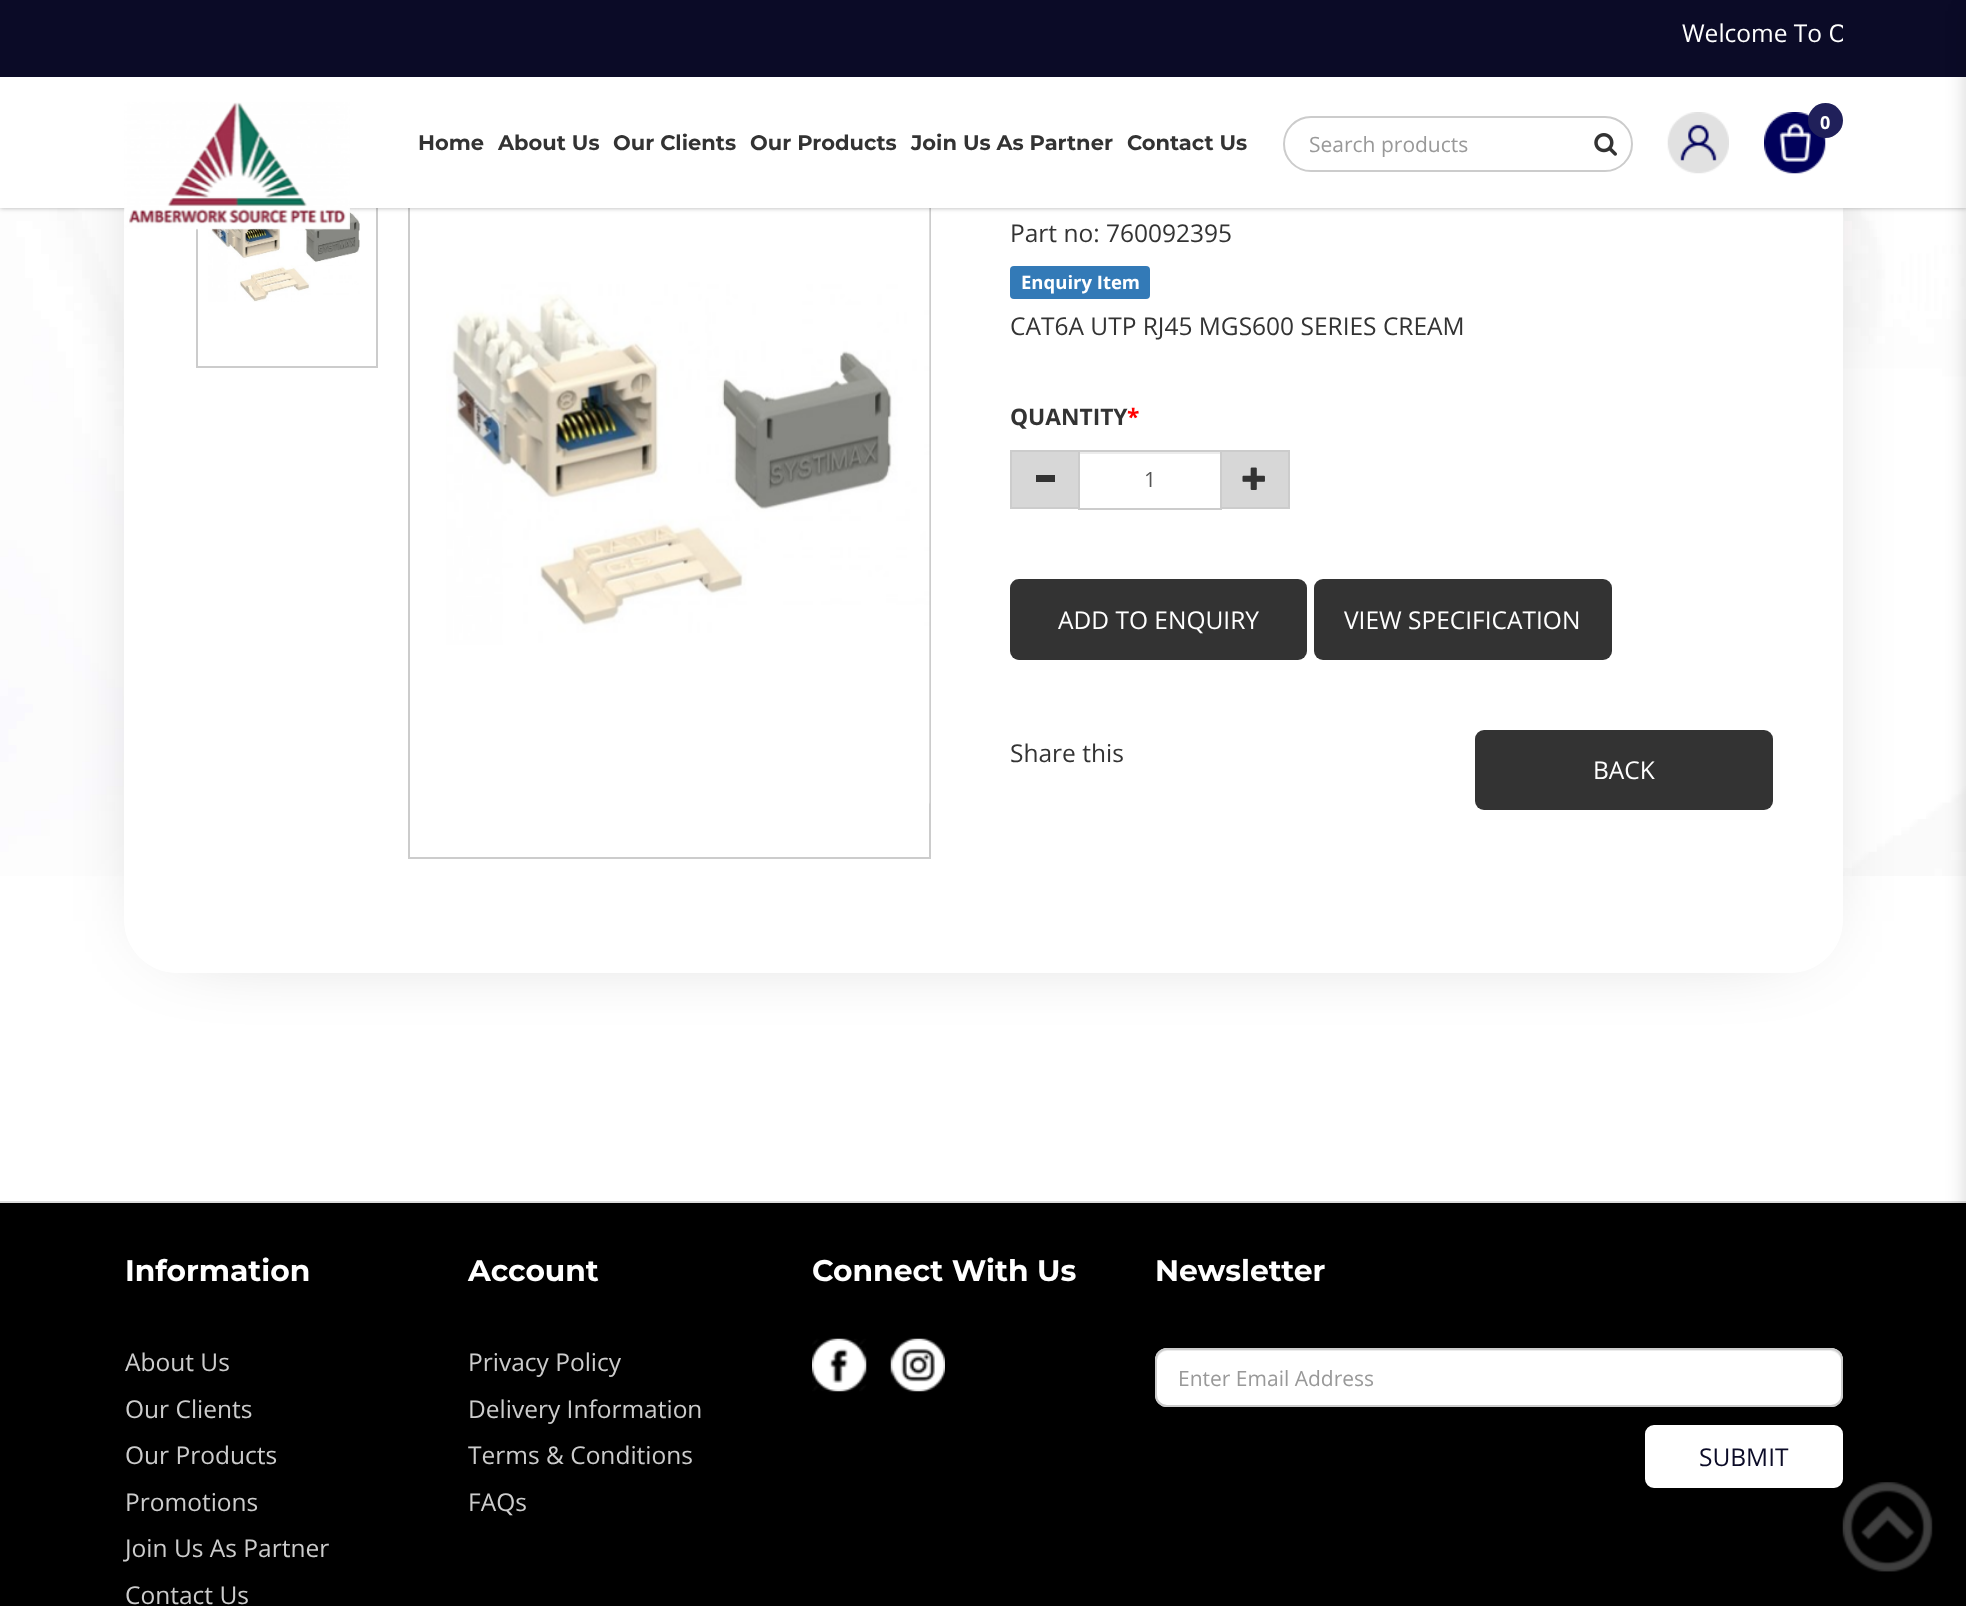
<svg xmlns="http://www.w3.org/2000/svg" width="1966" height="1606">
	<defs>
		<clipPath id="clip1"><rect x="124" y="11" width="1719" height="47" /></clipPath>
	</defs>
	<rect width="100%" height="100%" fill="#FFFFFF" />
	<image x="0" y="208" width="1966" height="668" href="assets/img1.png" />
	<rect x="177" y="107" width="1613" height="814" fill="#000000" fill-opacity="0.42" filter="blur(46.5px)" />
	<rect x="124" y="54" width="1719" height="919" rx="53" fill="#FFFFFF" />
	<rect x="197" y="127" width="180" height="240" fill="none" stroke="#CCCCCC" stroke-width="2" />
	<image x="208" y="208" width="152" height="94" href="assets/img6.png" />
	<rect x="409" y="125" width="521" height="733" fill="none" stroke="#CCCCCC" stroke-width="2" />
	<image x="446" y="208" width="484" height="596" href="assets/img7.png" />
	<rect x="0" y="0" width="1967" height="208" fill="#000000" fill-opacity="0.3" filter="blur(2.5px)" />
	<rect x="0" y="77" width="1966" height="131" fill="#FFFFFF" />
	<rect x="0" y="0" width="1966" height="77" fill="#0B0B27" />
	<g clip-path="url(#clip1)">
		<text x="1682" y="42" font-family="Open Sans" font-size="24.5" fill="#FFFFFF">Welcome To O</text>
	</g>
	<image x="124" y="102" width="226" height="128" href="assets/img2.png" />
	<g font-family="Montserrat" font-size="21" font-weight="100" fill="#333333">
		<text x="418" y="150">Home</text>
		<text x="498" y="150">About Us</text>
		<text x="613" y="150">Our Clients</text>
		<text x="750" y="150">Our Products</text>
		<text x="911" y="150">Join Us As Partner</text>
		<text x="1127" y="150">Contact Us</text>
	</g>
	<image x="1667" y="112" width="62" height="62" href="assets/img3.png" />
	<image x="1764" y="112" width="62" height="62" href="assets/img4.png" />
	<circle cx="1825.5" cy="120.5" r="17.5" fill="#20205A" />
	<text x="1820" y="129" font-family="Open Sans" font-size="18" font-weight="700" fill="#FFFFFF">0</text>
	<rect x="0" y="1203" width="1966" height="403" fill="#000000" />
	<rect x="0" y="1201" width="1966" height="2" fill="#DDDDDD" />
	<rect x="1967" y="11" width="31" height="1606" fill="#000000" fill-opacity="0.18" filter="blur(10.5px)" />
	<rect x="1284" y="117" width="348" height="54" rx="27" fill="none" stroke="#CCCCCC" stroke-width="2" />
	<text x="1309" y="152" font-family="Open Sans" font-size="21" fill="#999999">Search products</text>
	<image x="1594" y="133" width="23" height="23" href="assets/img5.png" />
	<text x="1010" y="242" font-family="Open Sans" font-size="24.5" fill="#333333">Part no: 760092395</text>
	<rect x="1010" y="266" width="140" height="33" rx="4" fill="#337AB7" />
	<text x="1021" y="289" font-family="Open Sans" font-size="18.5" font-weight="700" fill="#FFFFFF">Enquiry Item</text>
	<text x="1010" y="335" font-family="Open Sans" font-size="24.5" fill="#333333">CAT6A UTP RJ45 MGS600 SERIES CREAM</text>
	<text x="1010" y="425" font-family="Open Sans" font-size="22.75" font-weight="700" fill="#333333">QUANTITY</text>
	<text x="1127" y="425" font-family="Open Sans" font-size="22.75" font-weight="700" fill="#FF0000">*</text>
	<rect x="1078" y="452" width="144" height="2" fill="#ECECEC" />
	<rect x="1078" y="450" width="144" height="2" fill="#CCCCCC" />
	<rect x="1078" y="508" width="144" height="2" fill="#CCCCCC" />
	<rect x="1011" y="451" width="68" height="57" fill="#D7D7D7" stroke="#CCCCCC" stroke-width="2" />
	<rect x="1036" y="475" width="19" height="7" fill="#333333" />
	<text x="1144" y="487" font-family="Open Sans" font-size="21" fill="#555555">1</text>
	<rect x="1221" y="451" width="68" height="57" fill="#D7D7D7" stroke="#CCCCCC" stroke-width="2" />
	<image x="1242" y="467" width="23" height="23" href="assets/img8.png" />
	<rect x="1010" y="579" width="297" height="81" rx="9" fill="#333333" />
	<text x="1058" y="629" font-family="Open Sans" font-size="24.5" fill="#FFFFFF">ADD TO ENQUIRY</text>
	<rect x="1314" y="579" width="298" height="81" rx="9" fill="#333333" />
	<text x="1344" y="629" font-family="Open Sans" font-size="24.5" fill="#FFFFFF">VIEW SPECIFICATION</text>
	<text x="1010" y="762" font-family="Open Sans" font-size="24.5" fill="#333333">Share this</text>
	<rect x="1475" y="730" width="298" height="80" rx="9" fill="#333333" />
	<text x="1593" y="779" font-family="Open Sans" font-size="24.5" fill="#FFFFFF">BACK</text>
	<text x="125" y="1281" font-family="Montserrat" font-size="29.75" font-weight="100" fill="#FFFFFF">Information</text>
	<g font-family="Open Sans" font-size="24.5" fill="#CCCCCC">
		<text x="125" y="1371">About Us</text>
		<text x="125" y="1418">Our Clients</text>
		<text x="125" y="1464">Our Products</text>
		<text x="125" y="1511">Promotions</text>
		<text x="125" y="1557">Join Us As Partner</text>
		<text x="125" y="1604">Contact Us</text>
	</g>
	<text x="468" y="1281" font-family="Montserrat" font-size="29.75" font-weight="100" fill="#FFFFFF">Account</text>
	<g font-family="Open Sans" font-size="24.5" fill="#CCCCCC">
		<text x="468" y="1371">Privacy Policy</text>
		<text x="468" y="1418">Delivery Information</text>
		<text x="468" y="1464">Terms &amp; Conditions</text>
		<text x="468" y="1511">FAQs</text>
	</g>
	<text x="812" y="1281" font-family="Montserrat" font-size="29.75" font-weight="100" fill="#FFFFFF">Connect With Us</text>
	<image x="812" y="1338" width="55" height="54" href="assets/img9.png" />
	<image x="890" y="1338" width="55" height="54" href="assets/img10.png" />
	<text x="1155" y="1281" font-family="Montserrat" font-size="29.75" font-weight="100" fill="#FFFFFF">Newsletter</text>
	<rect x="1155" y="1348" width="688" height="59" rx="12" fill="#FFFFFF" />
	<path d="M1167 1351H1830C1836 1351 1841 1356 1841 1362C1841 1355 1837 1349 1830 1349H1168C1161 1349 1157 1355 1157 1362C1157 1356 1161 1351 1167 1351Z" fill="#ECECEC" />
	<rect x="1156" y="1349" width="686" height="57" rx="11" fill="none" stroke="#CCCCCC" stroke-width="2" />
	<text x="1178" y="1386" font-family="Open Sans" font-size="21" fill="#999999">Enter Email Address</text>
	<rect x="1646" y="1426" width="196" height="61" rx="8" fill="#FFFFFF" stroke="#FFFFFF" stroke-width="2" />
	<text x="1699" y="1466" font-family="Open Sans" font-size="24.5" fill="#0B0B27">SUBMIT</text>
	<image x="1842" y="1482" width="91" height="90" href="assets/img11.png" />
</svg>
